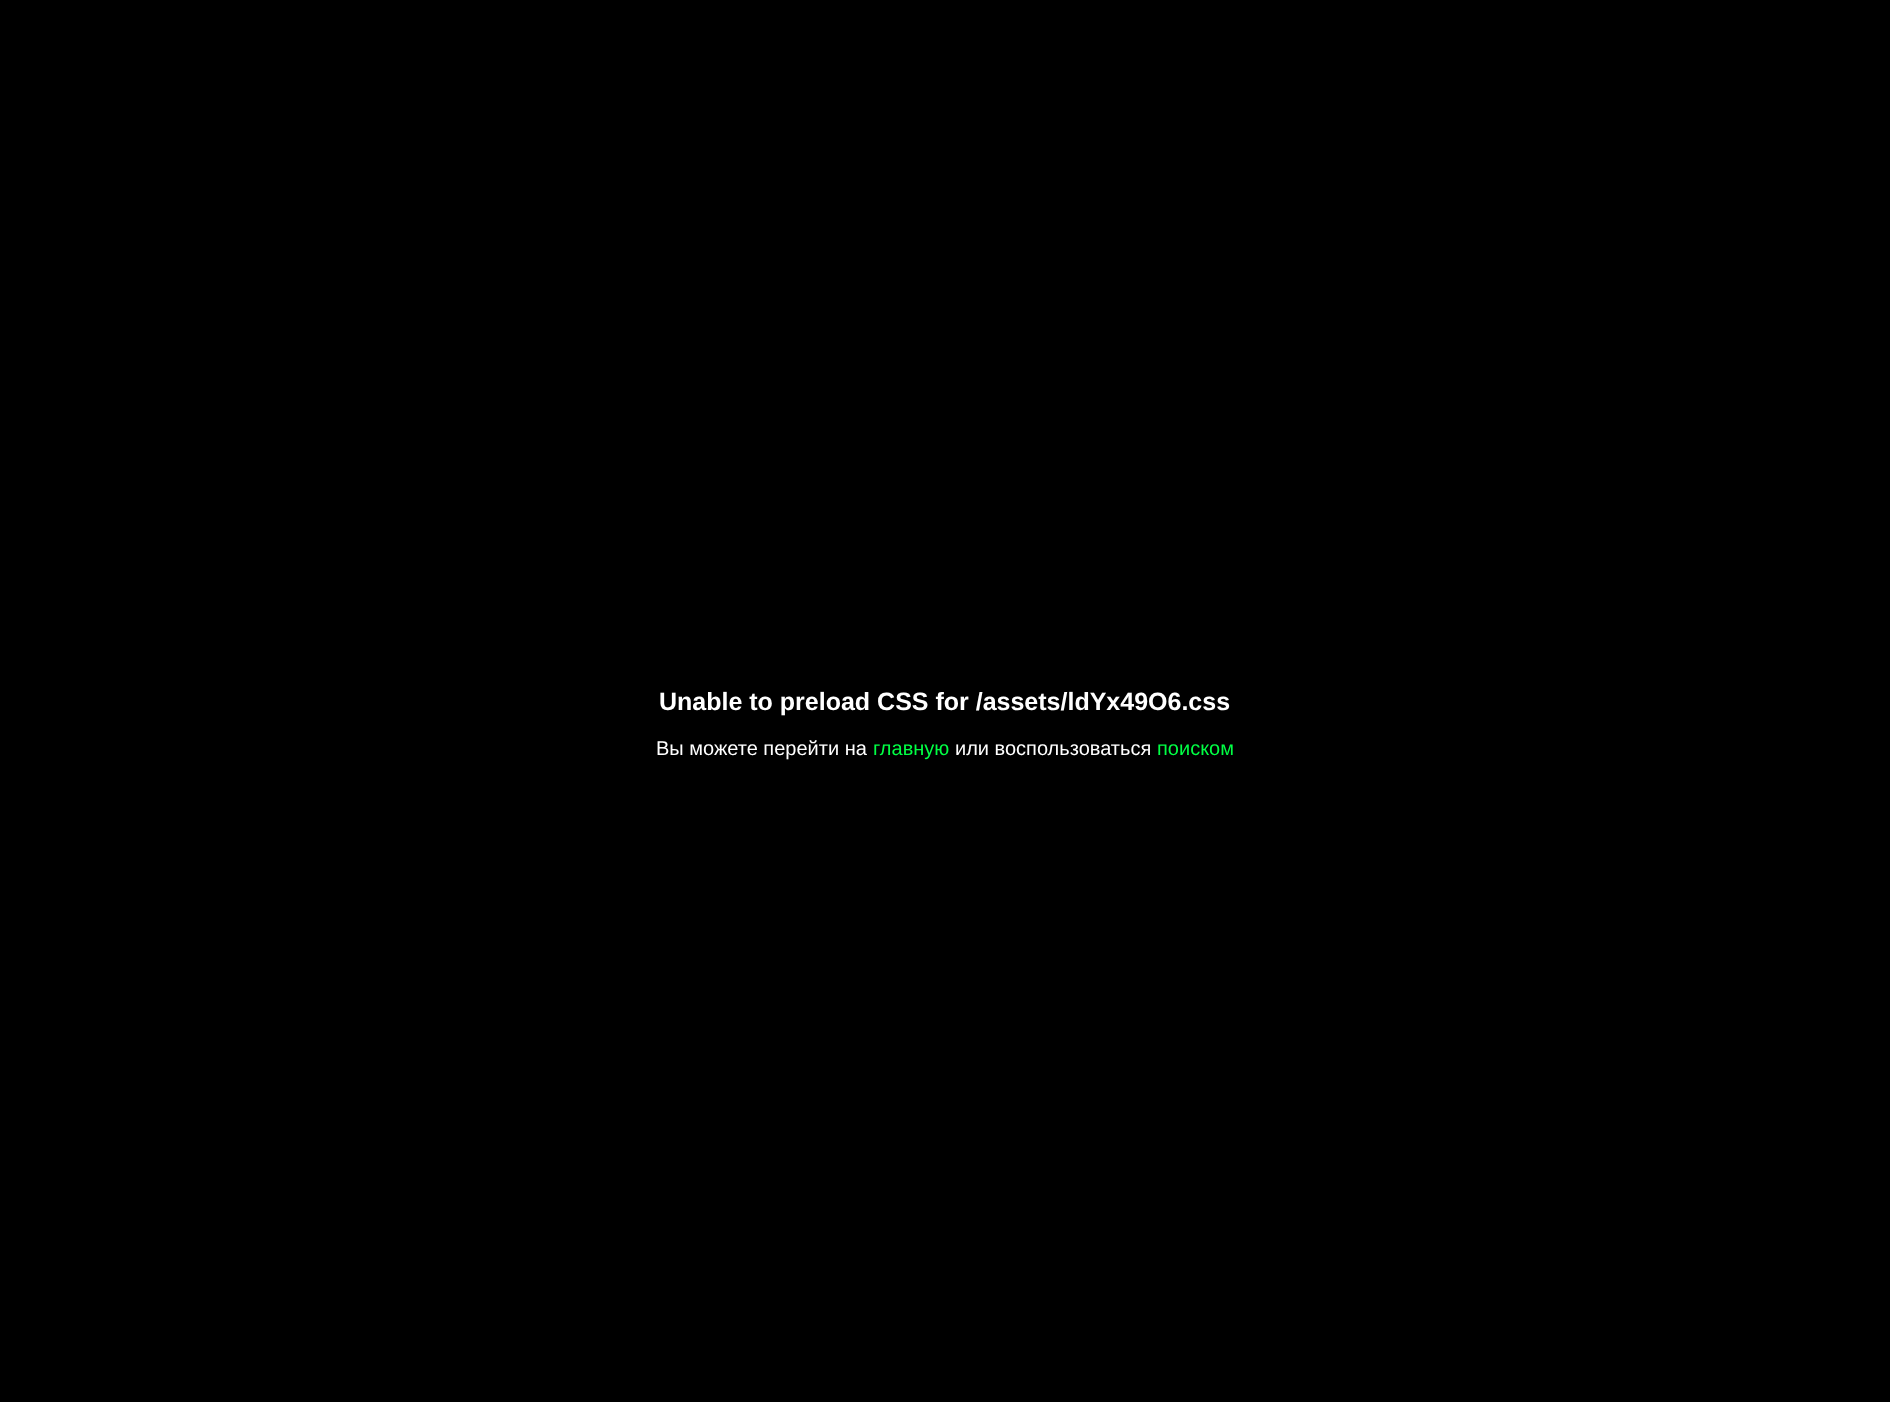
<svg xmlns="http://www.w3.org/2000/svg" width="1890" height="1402">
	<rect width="100%" height="100%" fill="#000000" />
	<text x="659" y="710" font-family="Liberation Sans" font-size="25" font-weight="700" fill="#FFFFFF">Unable to preload CSS for /assets/ldYx49O6.css</text>
	<text x="656" y="755" font-family="Liberation Sans" font-size="20" fill="#FFFFFF">Вы можете перейти на</text>
	<text x="873" y="755" font-family="Liberation Sans" font-size="20" fill="#00FF44">главную</text>
	<text x="955" y="755" font-family="Liberation Sans" font-size="20" fill="#FFFFFF">или воспользоваться</text>
	<text x="1157" y="755" font-family="Liberation Sans" font-size="20" fill="#00FF44">поиском</text>
</svg>
